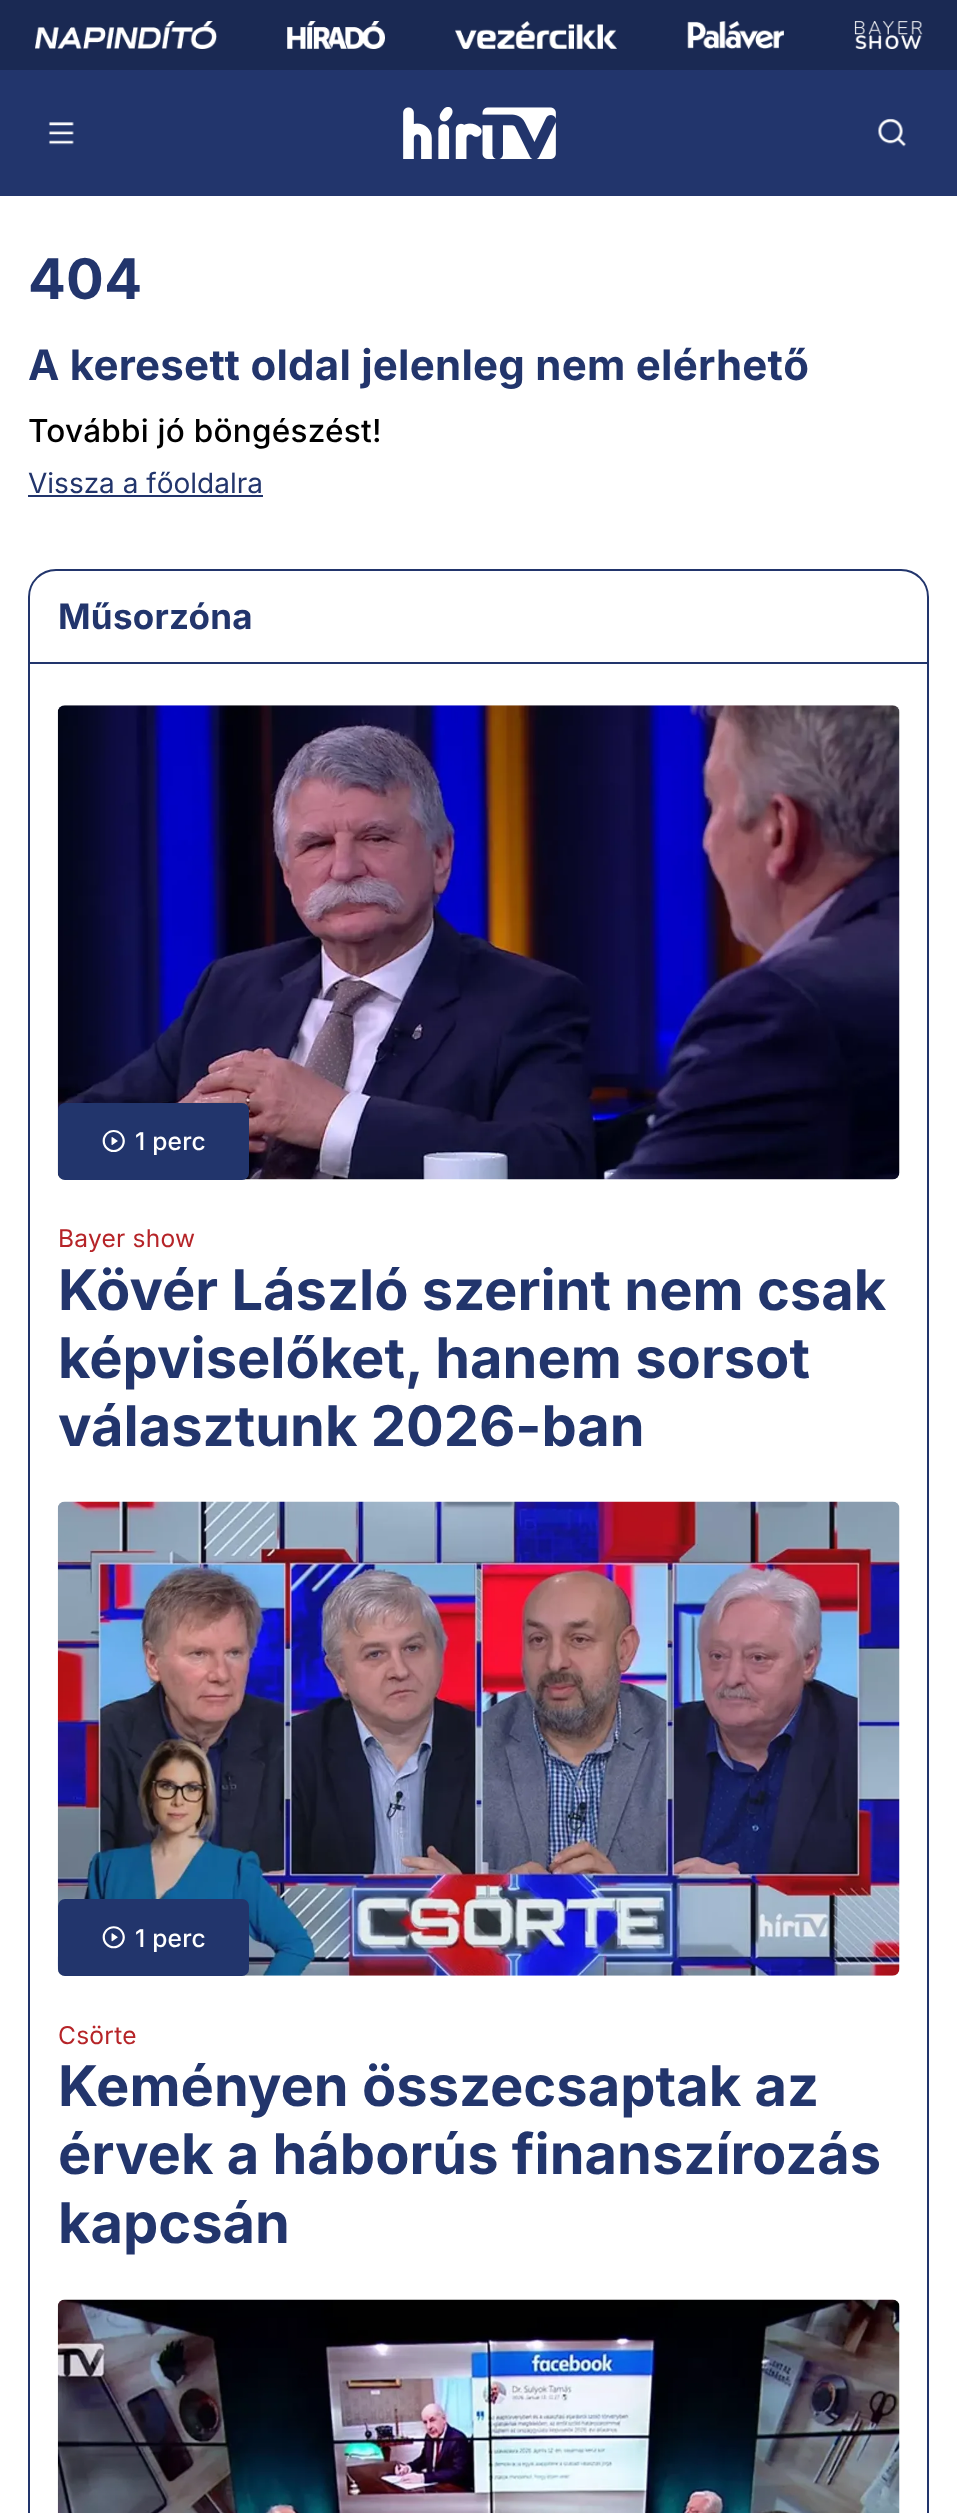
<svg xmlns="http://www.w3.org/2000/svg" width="957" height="2513">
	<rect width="100%" height="100%" fill="#FFFFFF" />
	<rect x="0" y="0" width="957" height="70" fill="#1A2953" />
	<image x="35" y="21" width="182" height="28" href="assets/img1.png" />
	<image x="287" y="21" width="98" height="28" href="assets/img2.png" />
	<image x="455" y="21" width="162" height="28" href="assets/img3.png" />
	<image x="687" y="21" width="97" height="28" href="assets/img4.png" />
	<image x="854" y="21" width="69" height="28" href="assets/img5.png" />
	<rect x="0" y="70" width="957" height="126" fill="#22356C" />
	<image x="48" y="122" width="26" height="23" href="assets/img6.png" />
	<image x="403" y="107" width="153" height="52" href="assets/img7.png" />
	<image x="878" y="118" width="28" height="29" href="assets/img8.png" />
	<text x="28" y="299" font-family="Inter" font-size="56" font-weight="700" letter-spacing="0.25" fill="#22356C">404</text>
	<text x="28" y="380" font-family="Inter" font-size="42" font-weight="700" letter-spacing="0.25" fill="#22356C">A keresett oldal jelenleg nem elérhető</text>
	<text x="28" y="442" font-family="Inter" font-size="31.5" font-weight="500" letter-spacing="0.25" fill="#000000">További jó böngészést!</text>
	<text x="28" y="493" font-family="Inter" font-size="28" fill="#22356C">Vissza a főoldalra</text>
	<rect x="28" y="495" width="235" height="2" fill="#22356C" />
	<rect x="29" y="570" width="899" height="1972" rx="27" fill="none" stroke="#22356C" stroke-width="2" />
	<rect x="30" y="662" width="898" height="2" fill="#22356C" />
	<text x="58" y="629" font-family="Inter" font-size="35" font-weight="700" letter-spacing="0.25" fill="#22356C">Műsorzóna</text>
	<image x="57" y="705" width="843" height="475" href="assets/img9.png" />
	<rect x="58" y="1103" width="191" height="77" rx="7" fill="#22356C" />
	<image x="102" y="1130" width="23" height="22" href="assets/img10.png" />
	<text x="135" y="1150" font-family="Inter" font-size="24.5" font-weight="500" letter-spacing="0.25" fill="#FFFFFF">1 perc</text>
	<text x="58" y="1247" font-family="Inter" font-size="24.5" letter-spacing="0.25" fill="#B62428">Bayer show</text>
	<g font-family="Inter" font-size="56" font-weight="700" fill="#22356C">
		<text x="58" y="1310">Kövér László szerint nem csak</text>
		<text x="58" y="1378">képviselőket, hanem sorsot</text>
		<text x="58" y="1446">választunk 2026-ban</text>
	</g>
	<image x="57" y="1501" width="843" height="475" href="assets/img11.png" />
	<rect x="58" y="1899" width="191" height="77" rx="7" fill="#22356C" />
	<image x="102" y="1926" width="23" height="23" href="assets/img12.png" />
	<text x="135" y="1947" font-family="Inter" font-size="24.5" font-weight="500" letter-spacing="0.25" fill="#FFFFFF">1 perc</text>
	<text x="58" y="2044" font-family="Inter" font-size="24.5" letter-spacing="0.25" fill="#B62428">Csörte</text>
	<g font-family="Inter" font-size="56" font-weight="700" fill="#22356C">
		<text x="58" y="2106">Keményen összecsaptak az</text>
		<text x="58" y="2174">érvek a háborús finanszírozás</text>
		<text x="58" y="2243">kapcsán</text>
	</g>
	<image x="57" y="2299" width="843" height="214" href="assets/img13.png" />
</svg>
